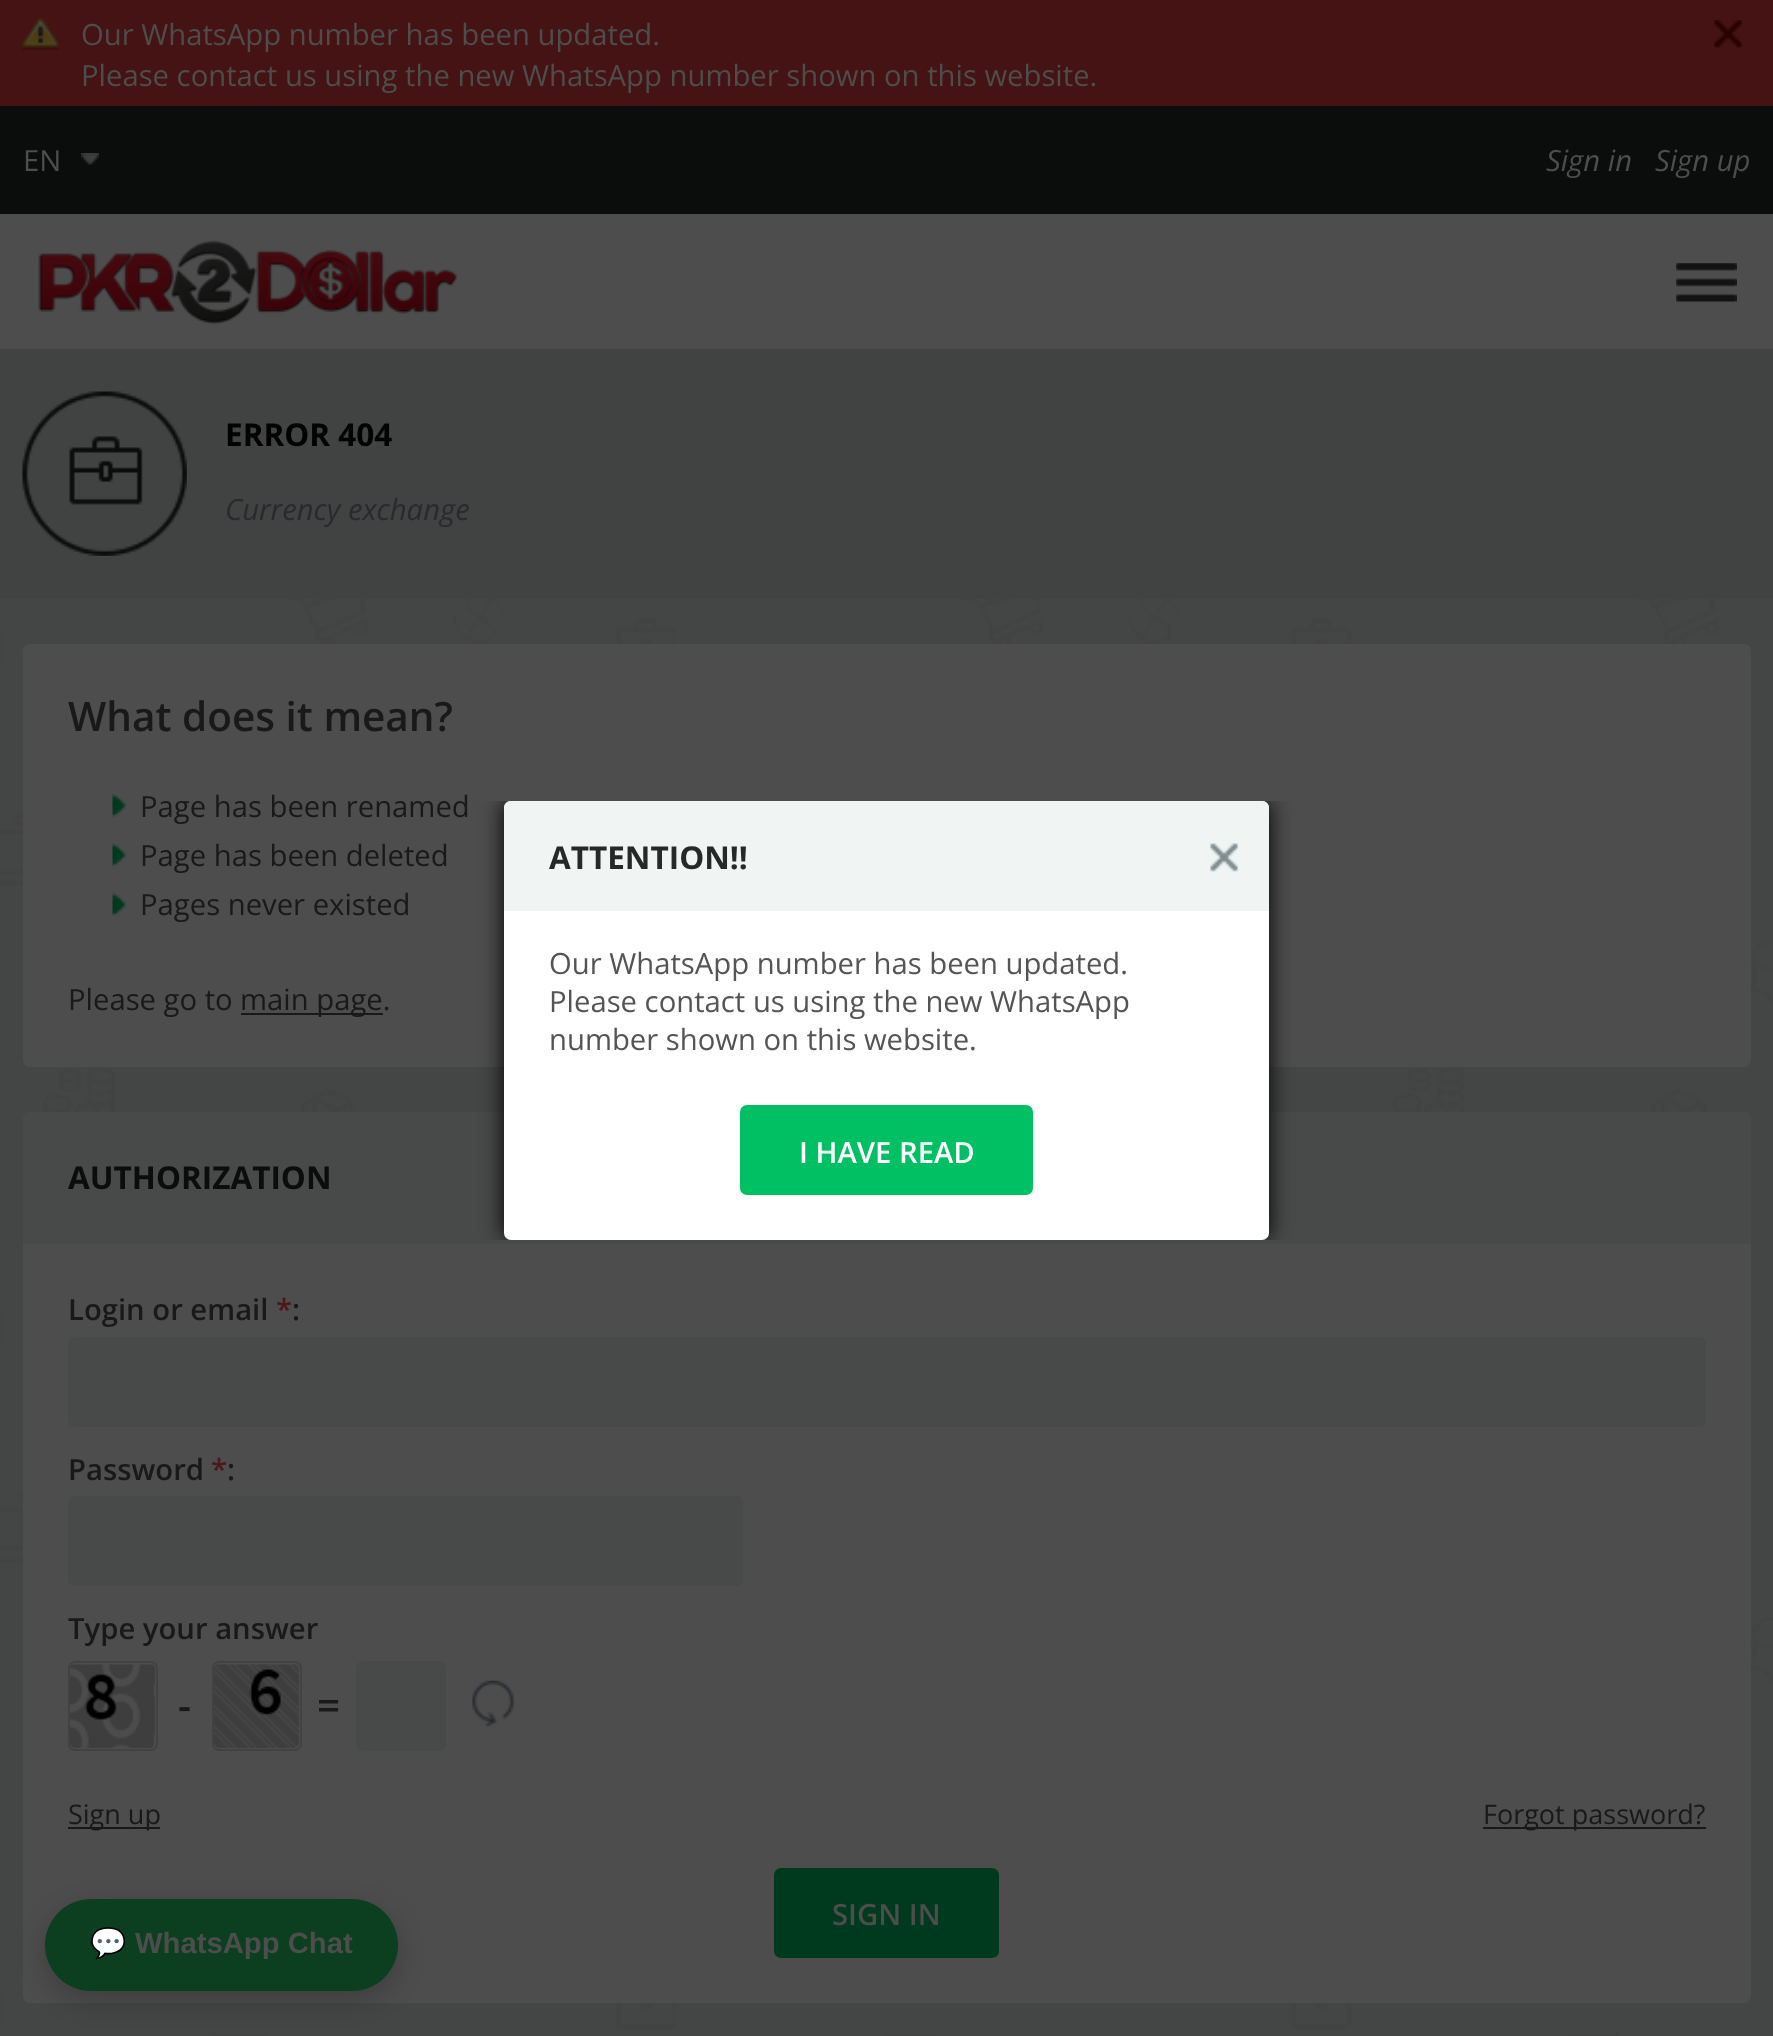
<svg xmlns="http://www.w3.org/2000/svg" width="1773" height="2036">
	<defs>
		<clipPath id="clip1"><rect x="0" y="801" width="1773" height="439" /></clipPath>
	</defs>
	<rect width="100%" height="100%" fill="#FFFFFF" />
	<image x="0" y="599" width="1773" height="1437" href="assets/img1.png" />
	<rect x="0" y="0" width="1773" height="106" fill="#451313" />
	<image x="22" y="17" width="37" height="33" href="assets/img2.png" />
	<g font-family="Open Sans" font-size="29.25" fill="#4D4D4D">
		<text x="81" y="45">Our WhatsApp number has been updated.</text>
		<text x="81" y="86">Please contact us using the new WhatsApp number shown on this website.</text>
	</g>
	<image x="1714" y="20" width="28" height="28" href="assets/img3.png" />
	<rect x="0" y="106" width="1773" height="108" fill="#0B0C0C" />
	<text x="23" y="171" font-family="Open Sans" font-size="29.25" fill="#4D4D4D">EN</text>
	<image x="81" y="153" width="18" height="12" href="assets/img4.png" />
	<g font-family="Open Sans" font-size="29.25" font-style="italic" fill="#4D4D4D">
		<text x="1546" y="171">Sign in</text>
		<text x="1655" y="171">Sign up</text>
	</g>
	<rect x="0" y="214" width="1773" height="135" fill="#4D4D4D" />
	<image x="38" y="240" width="419" height="85" href="assets/img5.png" />
	<image x="1676" y="263" width="61" height="39" href="assets/img6.png" />
	<rect x="0" y="349" width="1773" height="250" fill="#414342" />
	<image x="22" y="391" width="165" height="165" href="assets/img7.png" />
	<text x="225" y="446" font-family="Open Sans" font-size="31.5" font-weight="700" fill="#000000">ERROR 404</text>
	<text x="225" y="520" font-family="Open Sans" font-size="29.25" font-style="italic" fill="#282A2D">Currency exchange</text>
	<rect x="23" y="644" width="1728" height="423" rx="7" fill="#4D4D4D" />
	<text x="68" y="731" font-family="Open Sans" font-size="40.5" font-weight="600" fill="#191919">What does it mean?</text>
	<image x="112" y="794" width="14" height="23" href="assets/img8.png" />
	<text x="140" y="817" font-family="Open Sans" font-size="29.25" fill="#191919">Page has been renamed</text>
	<image x="112" y="843" width="14" height="24" href="assets/img9.png" />
	<text x="140" y="866" font-family="Open Sans" font-size="29.25" fill="#191919">Page has been deleted</text>
	<image x="112" y="893" width="14" height="23" href="assets/img8.png" />
	<g font-family="Open Sans" font-size="29.25" fill="#191919">
		<text x="140" y="915">Pages never existed</text>
		<text x="68" y="1010">Please go to</text>
	</g>
	<rect x="241" y="1013" width="142" height="2" fill="#191919" />
	<text x="240" y="1010" font-family="Open Sans" font-size="29.25" fill="#191919">main page.</text>
	<rect x="23" y="1112" width="1728" height="891" rx="7" fill="#4D4D4D" />
	<path d="M30 1112H1744C1748 1112 1751 1115 1751 1119V1244H23V1119C23 1115 26 1112 30 1112Z" fill="#484A49" />
	<text x="68" y="1189" font-family="Open Sans" font-size="31.5" font-weight="700" fill="#0B0C0C">AUTHORIZATION</text>
	<text x="68" y="1320" font-family="Open Sans" font-size="29.25" font-weight="600" fill="#191919">Login or email</text>
	<text x="276" y="1320" font-family="Open Sans" font-size="29.25" font-weight="600" fill="#4D1717">*</text>
	<text x="292" y="1320" font-family="Open Sans" font-size="29.25" font-weight="600" fill="#191919">:</text>
	<rect x="68" y="1337" width="1638" height="90" rx="7" fill="#484A49" />
	<text x="68" y="1480" font-family="Open Sans" font-size="29.25" font-weight="600" fill="#191919">Password</text>
	<text x="211" y="1480" font-family="Open Sans" font-size="29.25" font-weight="600" fill="#4D1717">*</text>
	<text x="227" y="1480" font-family="Open Sans" font-size="29.25" font-weight="600" fill="#191919">:</text>
	<rect x="68" y="1496" width="675" height="90" rx="7" fill="#484A49" />
	<text x="68" y="1639" font-family="Open Sans" font-size="29.25" font-weight="600" fill="#191919">Type your answer</text>
	<rect x="69" y="1662" width="88" height="88" rx="6" fill="none" stroke="#424242" stroke-width="2" />
	<image x="70" y="1664" width="85" height="84" href="assets/img10.png" />
	<text x="178" y="1720" font-family="Open Sans" font-size="40.5" font-weight="600" fill="#191919">-</text>
	<rect x="213" y="1662" width="88" height="88" rx="6" fill="none" stroke="#424242" stroke-width="2" />
	<image x="214" y="1664" width="85" height="84" href="assets/img11.png" />
	<text x="317" y="1720" font-family="Open Sans" font-size="40.5" font-weight="600" fill="#191919">=</text>
	<rect x="356" y="1661" width="90" height="90" rx="7" fill="#484A49" />
	<image x="472" y="1680" width="44" height="47" href="assets/img12.png" />
	<rect x="68" y="1827" width="92" height="2" fill="#191919" />
	<text x="68" y="1824" font-family="Open Sans" font-size="27" fill="#191919">Sign up</text>
	<rect x="1483" y="1827" width="223" height="2" fill="#191919" />
	<text x="1483" y="1824" font-family="Open Sans" font-size="27" fill="#191919">Forgot password?</text>
	<rect x="775" y="1869" width="223" height="88" rx="6" fill="#003A1E" stroke="#003A1E" stroke-width="2" />
	<text x="832" y="1925" font-family="Open Sans" font-size="29.25" font-weight="600" fill="#4D4D4D">SIGN IN</text>
	<g clip-path="url(#clip1)">
		<rect x="504" y="801" width="765" height="439" rx="7" fill="#000000" filter="blur(11px)" />
	</g>
	<rect x="504" y="801" width="765" height="439" rx="7" fill="#FFFFFF" />
	<path d="M511 801H1262C1266 801 1269 804 1269 808V911H504V808C504 804 507 801 511 801Z" fill="#F0F5F3" />
	<text x="549" y="869" font-family="Open Sans" font-size="31.5" font-weight="700" fill="#252927">ATTENTION!!</text>
	<image x="1210" y="843" width="29" height="29" href="assets/img13.png" />
	<g font-family="Open Sans" font-size="29.25" fill="#545454">
		<text x="549" y="974">Our WhatsApp number has been updated.</text>
		<text x="549" y="1012">Please contact us using the new WhatsApp</text>
		<text x="549" y="1050">number shown on this website.</text>
	</g>
	<rect x="741" y="1106" width="291" height="88" rx="6" fill="#00C063" stroke="#00C063" stroke-width="2" />
	<text x="799" y="1163" font-family="Open Sans" font-size="29.25" font-weight="600" fill="#FFFFFF">I HAVE READ</text>
	<rect x="45" y="1908" width="353" height="92" rx="46" fill="#000000" fill-opacity="0.2" filter="blur(13.5px)" />
	<rect x="45" y="1899" width="353" height="92" rx="46" fill="#0B3F1F" />
	<text x="90" y="1953" font-family="Noto Color Emoji" font-size="29.25" font-weight="700" fill="#4D4D4D">💬</text>
	<text x="135" y="1953" font-family="Liberation Sans" font-size="29.25" font-weight="700" fill="#4D4D4D">WhatsApp Chat</text>
</svg>
